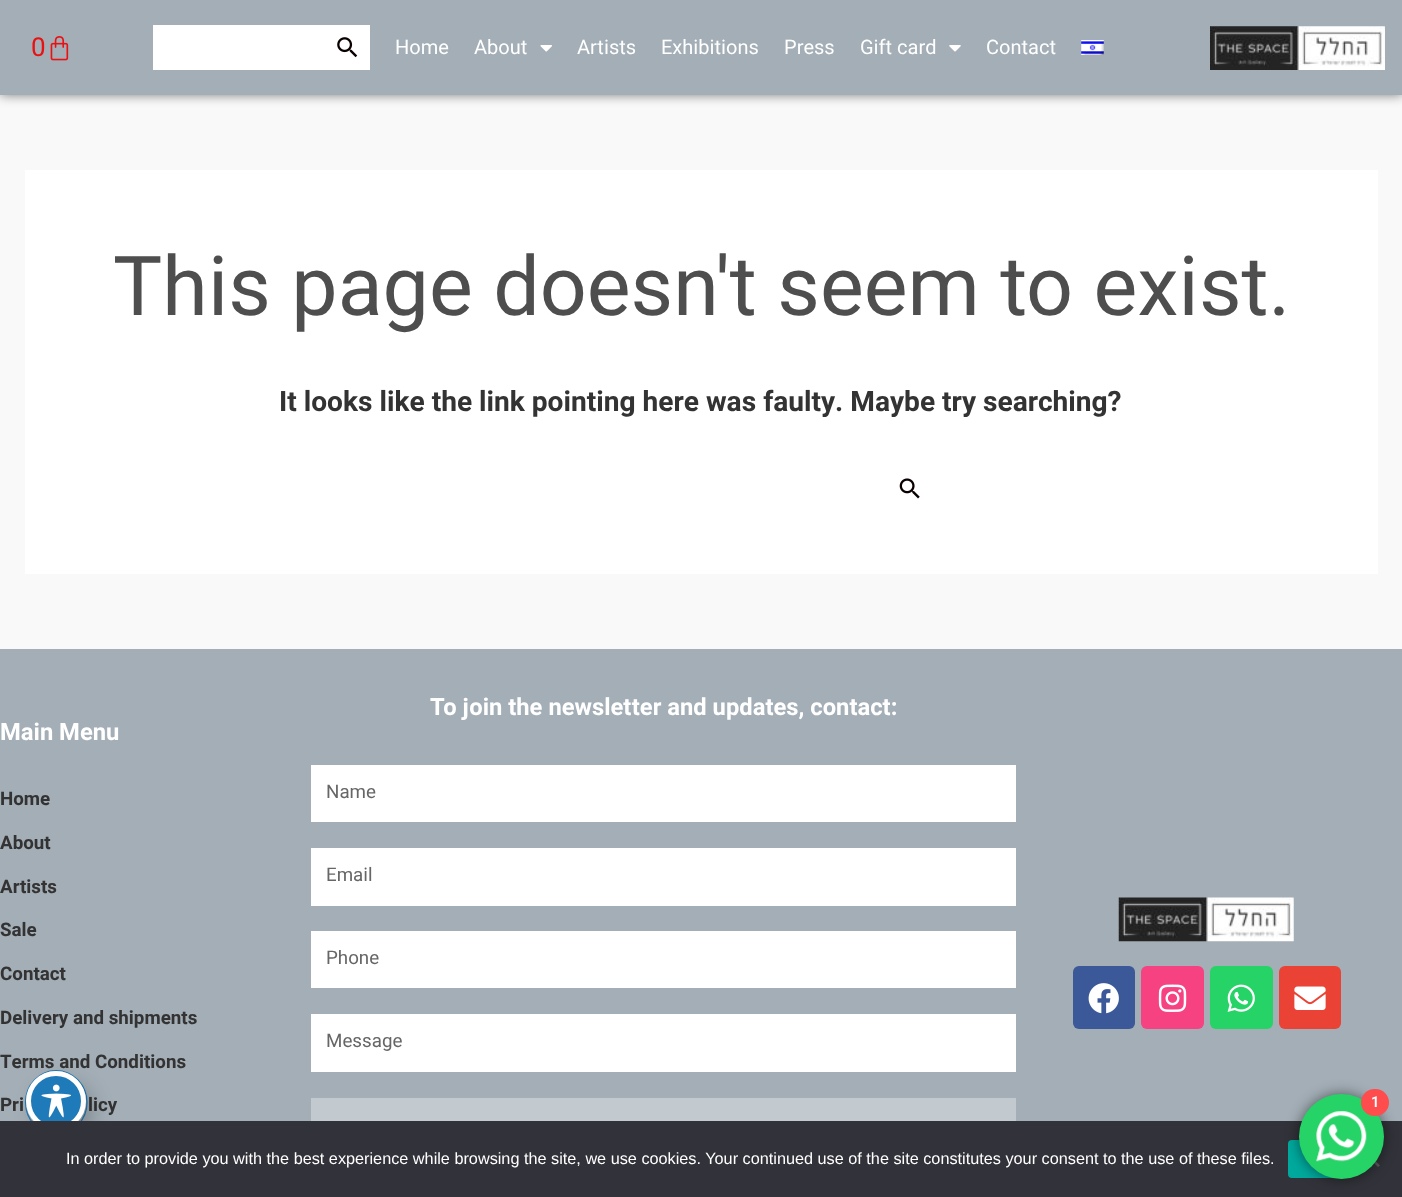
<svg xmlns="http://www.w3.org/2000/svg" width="1402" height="1197">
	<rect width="100%" height="100%" fill="#F9F9F9" />
	<rect x="0" y="0" width="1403" height="95" fill="#000000" fill-opacity="0.5" filter="blur(6px)" />
	<rect x="0" y="0" width="1402" height="95" fill="#A3AEB6" />
	<text x="31" y="56" font-family="Heebo" font-size="26" fill="#E91111">0</text>
	<image x="50" y="36" width="19" height="25" href="assets/img1.png" />
	<rect x="153" y="25" width="217" height="45" fill="#FFFFFF" />
	<image x="337" y="37" width="21" height="21" href="assets/img2.png" />
	<g font-family="Heebo" font-size="20" fill="#FFFFFF">
		<text x="395" y="54">Home</text>
		<text x="474" y="54">About</text>
	</g>
	<image x="540" y="45" width="12" height="7" href="assets/img3.png" />
	<g font-family="Heebo" font-size="20" fill="#FFFFFF">
		<text x="577" y="54">Artists</text>
		<text x="661" y="54">Exhibitions</text>
		<text x="784" y="54">Press</text>
		<text x="860" y="54">Gift card</text>
	</g>
	<image x="949" y="45" width="12" height="7" href="assets/img4.png" />
	<text x="986" y="54" font-family="Heebo" font-size="20" fill="#FFFFFF">Contact</text>
	<image x="1081" y="40" width="23" height="15" href="assets/img5.png" />
	<image x="1210" y="26" width="175" height="44" href="assets/img6.png" />
	<rect x="25" y="170" width="1353" height="404" fill="#FFFFFF" />
	<text x="113" y="315" font-family="Heebo" font-size="82.5" fill="#4E4E4E">This page doesn't seem to exist.</text>
	<text x="279" y="411" font-family="Heebo" font-size="28.1" font-weight="700" fill="#333333">It looks like the link pointing here was faulty. Maybe try searching?</text>
	<image x="899" y="478" width="21" height="21" href="assets/img7.png" />
	<rect x="0" y="649" width="1402" height="472" fill="#A3AEB6" />
	<text x="0" y="740" font-family="Heebo" font-size="23.75" font-weight="700" fill="#FFFFFF">Main Menu</text>
	<g font-family="Heebo" font-size="18.75" font-weight="700" fill="#333333">
		<text x="0" y="805">Home</text>
		<text x="0" y="849">About</text>
		<text x="0" y="893">Artists</text>
		<text x="0" y="936">Sale</text>
		<text x="0" y="980">Contact</text>
		<text x="0" y="1024">Delivery and shipments</text>
		<text x="0" y="1068">Terms and Conditions</text>
		<text x="0" y="1111">Pri</text>
		<text x="88" y="1111">licy</text>
	</g>
	<text x="430" y="715" font-family="Heebo" font-size="23.75" font-weight="700" fill="#FFFFFF">To join the newsletter and updates, contact:</text>
	<rect x="311" y="765" width="705" height="57" fill="#FFFFFF" />
	<text x="326" y="798" font-family="Heebo" font-size="18.75" fill="#666666">Name</text>
	<rect x="311" y="848" width="705" height="58" fill="#FFFFFF" />
	<text x="326" y="881" font-family="Heebo" font-size="18.75" fill="#666666">Email</text>
	<rect x="311" y="931" width="705" height="57" fill="#FFFFFF" />
	<text x="326" y="964" font-family="Heebo" font-size="18.75" fill="#666666">Phone</text>
	<rect x="311" y="1014" width="705" height="58" fill="#FFFFFF" />
	<text x="326" y="1047" font-family="Heebo" font-size="18.75" fill="#666666">Message</text>
	<rect x="311" y="1098" width="705" height="23" fill="#C2CACF" />
	<image x="1118" y="897" width="176" height="45" href="assets/img8.png" />
	<rect x="1073" y="966" width="62" height="63" rx="6" fill="#3B5998" />
	<image x="1088" y="983" width="31" height="31" href="assets/img9.png" />
	<rect x="1141" y="966" width="63" height="63" rx="6" fill="#F64281" />
	<image x="1158" y="984" width="29" height="28" href="assets/img10.png" />
	<rect x="1210" y="966" width="63" height="63" rx="6" fill="#25D366" />
	<image x="1227" y="984" width="28" height="28" href="assets/img11.png" />
	<rect x="1279" y="966" width="62" height="63" rx="6" fill="#EA4335" />
	<image x="1294" y="986" width="32" height="24" href="assets/img12.png" />
	<path d="M56 1070.5C73 1070.5 87 1085 87 1102.5C87 1120 73 1134.5 56 1134.5C39.5 1134.5 25.5 1120 25.5 1102.5C25.5 1085 39.5 1070.5 56 1070.5Z" fill="none" stroke="#1E7AB9" stroke-width="1.2" />
	<rect x="34" y="1081" width="60" height="60" rx="30" fill="#000000" fill-opacity="0.2" filter="blur(10px)" />
	<circle cx="56" cy="1101" r="27.5" fill="#1E7AB9" stroke="#FFFFFF" stroke-width="5" />
	<image x="41" y="1084" width="30" height="34" href="assets/img13.png" />
	<rect x="0" y="1121" width="1402" height="76" fill="#32323A" />
	<rect x="1288" y="1140" width="48" height="38" rx="4" fill="#00A99D" />
	<path d="M1365 1154L1367 1152L1380 1165.5L1378 1167Z" fill="#59595D" />
	<rect x="1299" y="1094" width="85" height="85" rx="42.5" fill="#000000" fill-opacity="0.5" filter="blur(7px)" />
	<circle cx="1341.5" cy="1136.5" r="42.5" fill="#25D366" />
	<image x="1316" y="1111" width="51" height="51" href="assets/img14.png" />
	<rect x="1361" y="1089" width="28" height="27" rx="13.5" fill="#FF4C4C" />
	<text x="1371" y="1107" font-family="Heebo" font-size="15" font-weight="600" fill="#FFFFFF">1</text>
	<text x="66" y="1164" font-family="Liberation Sans" font-size="16.25" fill="#FFFFFF">In order to provide you with the best experience while browsing the site, we use cookies. Your continued use of the site constitutes your consent to the use of these files.</text>
</svg>
